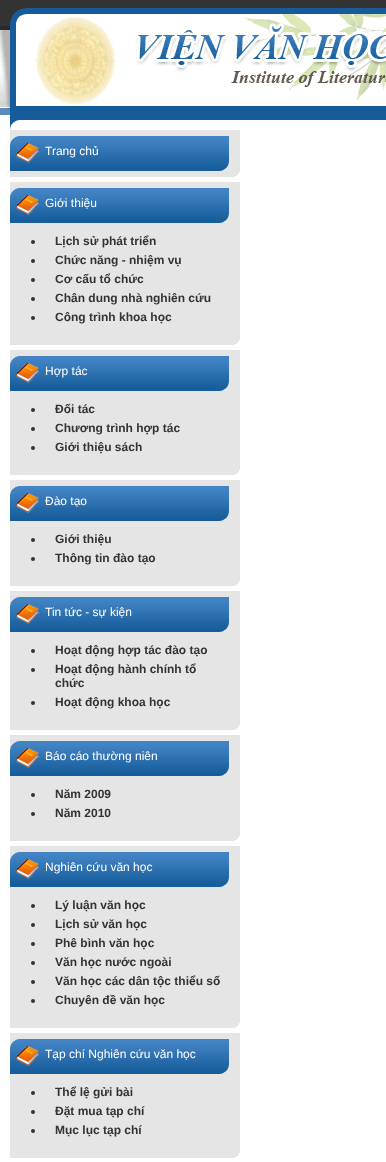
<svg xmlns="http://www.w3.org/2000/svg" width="386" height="1162">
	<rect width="100%" height="100%" fill="#FFFFFF" />
	<image x="0" y="0" width="386" height="8" href="assets/img1.png" />
	<image x="0" y="8" width="386" height="122" href="assets/img2.png" />
	<image x="10" y="130" width="230" height="47" href="assets/img3.png" />
	<image x="10" y="136" width="219" height="35" href="assets/img4.png" />
	<text x="45" y="155" font-family="Liberation Sans" font-size="12" fill="#FFFFFF">Trang chủ</text>
	<image x="10" y="182" width="230" height="163" href="assets/img5.png" />
	<image x="10" y="188" width="219" height="35" href="assets/img4.png" />
	<text x="45" y="207" font-family="Liberation Sans" font-size="12" fill="#FFFFFF">Giới thiệu</text>
	<circle cx="33" cy="242" r="2" fill="#333333" />
	<text x="55" y="245" font-family="Liberation Sans" font-size="12" font-weight="700" fill="#333333">Lịch sử phát triển</text>
	<circle cx="33" cy="261" r="2" fill="#333333" />
	<text x="55" y="264" font-family="Liberation Sans" font-size="12" font-weight="700" fill="#333333">Chức năng - nhiệm vụ</text>
	<circle cx="33" cy="280" r="2" fill="#333333" />
	<text x="55" y="283" font-family="Liberation Sans" font-size="12" font-weight="700" fill="#333333">Cơ cấu tổ chức</text>
	<circle cx="33" cy="299" r="2" fill="#333333" />
	<text x="55" y="302" font-family="Liberation Sans" font-size="12" font-weight="700" fill="#333333">Chân dung nhà nghiên cứu</text>
	<circle cx="33" cy="318" r="2" fill="#333333" />
	<text x="55" y="321" font-family="Liberation Sans" font-size="12" font-weight="700" fill="#333333">Công trình khoa học</text>
	<image x="10" y="350" width="230" height="125" href="assets/img6.png" />
	<image x="10" y="356" width="219" height="35" href="assets/img4.png" />
	<text x="45" y="375" font-family="Liberation Sans" font-size="12" fill="#FFFFFF">Hợp tác</text>
	<circle cx="33" cy="410" r="2" fill="#333333" />
	<text x="55" y="413" font-family="Liberation Sans" font-size="12" font-weight="700" fill="#333333">Đối tác</text>
	<circle cx="33" cy="429" r="2" fill="#333333" />
	<text x="55" y="432" font-family="Liberation Sans" font-size="12" font-weight="700" fill="#333333">Chương trình hợp tác</text>
	<circle cx="33" cy="448" r="2" fill="#333333" />
	<text x="55" y="451" font-family="Liberation Sans" font-size="12" font-weight="700" fill="#333333">Giới thiệu sách</text>
	<image x="10" y="480" width="230" height="106" href="assets/img7.png" />
	<image x="10" y="486" width="219" height="35" href="assets/img4.png" />
	<text x="45" y="505" font-family="Liberation Sans" font-size="12" fill="#FFFFFF">Đào tạo</text>
	<circle cx="33" cy="540" r="2" fill="#333333" />
	<text x="55" y="543" font-family="Liberation Sans" font-size="12" font-weight="700" fill="#333333">Giới thiệu</text>
	<circle cx="33" cy="559" r="2" fill="#333333" />
	<text x="55" y="562" font-family="Liberation Sans" font-size="12" font-weight="700" fill="#333333">Thông tin đào tạo</text>
	<image x="10" y="591" width="230" height="139" href="assets/img8.png" />
	<image x="10" y="597" width="219" height="35" href="assets/img4.png" />
	<text x="45" y="616" font-family="Liberation Sans" font-size="12" fill="#FFFFFF">Tin tức - sự kiện</text>
	<circle cx="33" cy="651" r="2" fill="#333333" />
	<text x="55" y="654" font-family="Liberation Sans" font-size="12" font-weight="700" fill="#333333">Hoạt động hợp tác đào tạo</text>
	<circle cx="33" cy="670" r="2" fill="#333333" />
	<g font-family="Liberation Sans" font-size="12" font-weight="700" fill="#333333">
		<text x="55" y="673">Hoạt động hành chính tổ</text>
		<text x="55" y="687">chức</text>
	</g>
	<circle cx="33" cy="703" r="2" fill="#333333" />
	<text x="55" y="706" font-family="Liberation Sans" font-size="12" font-weight="700" fill="#333333">Hoạt động khoa học</text>
	<image x="10" y="735" width="230" height="106" href="assets/img7.png" />
	<image x="10" y="741" width="219" height="35" href="assets/img4.png" />
	<text x="45" y="760" font-family="Liberation Sans" font-size="12" fill="#FFFFFF">Báo cáo thường niên</text>
	<circle cx="33" cy="795" r="2" fill="#333333" />
	<text x="55" y="798" font-family="Liberation Sans" font-size="12" font-weight="700" fill="#333333">Năm 2009</text>
	<circle cx="33" cy="814" r="2" fill="#333333" />
	<text x="55" y="817" font-family="Liberation Sans" font-size="12" font-weight="700" fill="#333333">Năm 2010</text>
	<image x="10" y="846" width="230" height="182" href="assets/img9.png" />
	<image x="10" y="852" width="219" height="35" href="assets/img4.png" />
	<text x="45" y="871" font-family="Liberation Sans" font-size="12" fill="#FFFFFF">Nghiên cứu văn học</text>
	<circle cx="33" cy="906" r="2" fill="#333333" />
	<text x="55" y="909" font-family="Liberation Sans" font-size="12" font-weight="700" fill="#333333">Lý luận văn học</text>
	<circle cx="33" cy="925" r="2" fill="#333333" />
	<text x="55" y="928" font-family="Liberation Sans" font-size="12" font-weight="700" fill="#333333">Lịch sử văn học</text>
	<circle cx="33" cy="944" r="2" fill="#333333" />
	<text x="55" y="947" font-family="Liberation Sans" font-size="12" font-weight="700" fill="#333333">Phê bình văn học</text>
	<circle cx="33" cy="963" r="2" fill="#333333" />
	<text x="55" y="966" font-family="Liberation Sans" font-size="12" font-weight="700" fill="#333333">Văn học nước ngoài</text>
	<circle cx="33" cy="982" r="2" fill="#333333" />
	<text x="55" y="985" font-family="Liberation Sans" font-size="12" font-weight="700" fill="#333333">Văn học các dân tộc thiểu số</text>
	<circle cx="33" cy="1001" r="2" fill="#333333" />
	<text x="55" y="1004" font-family="Liberation Sans" font-size="12" font-weight="700" fill="#333333">Chuyên đề văn học</text>
	<image x="10" y="1033" width="230" height="125" href="assets/img6.png" />
	<image x="10" y="1039" width="219" height="35" href="assets/img4.png" />
	<text x="45" y="1058" font-family="Liberation Sans" font-size="12" fill="#FFFFFF">Tạp chí Nghiên cứu văn học</text>
	<circle cx="33" cy="1093" r="2" fill="#333333" />
	<text x="55" y="1096" font-family="Liberation Sans" font-size="12" font-weight="700" fill="#333333">Thể lệ gửi bài</text>
	<circle cx="33" cy="1112" r="2" fill="#333333" />
	<text x="55" y="1115" font-family="Liberation Sans" font-size="12" font-weight="700" fill="#333333">Đặt mua tạp chí</text>
	<circle cx="33" cy="1131" r="2" fill="#333333" />
	<text x="55" y="1134" font-family="Liberation Sans" font-size="12" font-weight="700" fill="#333333">Mục lục tạp chí</text>
</svg>
